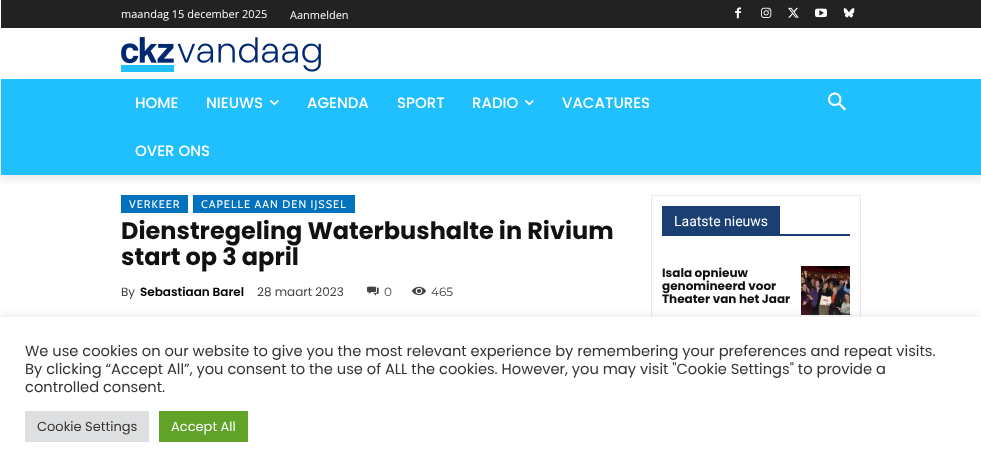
<svg xmlns="http://www.w3.org/2000/svg" width="981" height="472">
	<defs>
		<clipPath id="clip1"><rect x="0" y="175" width="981" height="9" /></clipPath>
	</defs>
	<rect width="100%" height="100%" fill="#FFFFFF" />
	<rect x="1" y="0" width="980" height="28" fill="#222222" />
	<image x="735" y="7" width="6" height="12" href="assets/img1.png" />
	<image x="761" y="7" width="11" height="11" href="assets/img2.png" />
	<image x="788" y="7" width="11" height="11" href="assets/img3.png" />
	<image x="815" y="8" width="12" height="10" href="assets/img4.png" />
	<image x="843" y="8" width="12" height="10" href="assets/img5.png" />
	<image x="121" y="37" width="200" height="35" href="assets/img6.png" />
	<rect x="1" y="79" width="980" height="96" fill="#20C0FF" />
	<g clip-path="url(#clip1)">
		<rect x="1" y="6" width="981" height="175" fill="#000000" fill-opacity="0.08" filter="blur(4px)" />
	</g>
	<g font-family="Open Sans" font-size="11" fill="#FFFFFF">
		<text x="121" y="18">maandag 15 december 2025</text>
		<text x="290" y="19">Aanmelden</text>
	</g>
	<g font-family="Poppins" font-size="15" font-weight="500" fill="#FFFFFF">
		<text x="135" y="108">HOME</text>
		<text x="206" y="108">NIEUWS</text>
	</g>
	<image x="270" y="100" width="9" height="6" href="assets/img7.png" />
	<g font-family="Poppins" font-size="15" font-weight="500" fill="#FFFFFF">
		<text x="307" y="108">AGENDA</text>
		<text x="397" y="108">SPORT</text>
		<text x="472" y="108">RADIO</text>
	</g>
	<image x="525" y="100" width="9" height="6" href="assets/img7.png" />
	<g font-family="Poppins" font-size="15" font-weight="500" fill="#FFFFFF">
		<text x="562" y="108">VACATURES</text>
		<text x="135" y="156">OVER ONS</text>
	</g>
	<image x="828" y="92" width="18" height="19" href="assets/img8.png" />
	<rect x="121" y="195" width="67" height="18" fill="#0072BE" />
	<text x="129" y="208" font-family="Cabin" font-size="11" letter-spacing="1" fill="#FFFFFF">VERKEER</text>
	<rect x="193" y="195" width="162" height="18" fill="#0072BE" />
	<text x="201" y="208" font-family="Cabin" font-size="11" letter-spacing="1" fill="#FFFFFF">CAPELLE AAN DEN IJSSEL</text>
	<g font-family="Poppins" font-size="24" font-weight="700" fill="#111111">
		<text x="121" y="239">Dienstregeling Waterbushalte in Rivium</text>
		<text x="121" y="265">start op 3 april</text>
	</g>
	<text x="121" y="296" font-family="Poppins" font-size="12" fill="#444444">By</text>
	<text x="140" y="296" font-family="Poppins" font-size="12" font-weight="600" fill="#000000">Sebastiaan Barel</text>
	<text x="257" y="296" font-family="Poppins" font-size="12" fill="#444444">28 maart 2023</text>
	<image x="367" y="286" width="12" height="10" href="assets/img9.png" />
	<text x="384" y="296" font-family="Montserrat" font-size="12" fill="#444444">0</text>
	<image x="412" y="286" width="14" height="10" href="assets/img10.png" />
	<text x="431" y="296" font-family="Montserrat" font-size="12" fill="#444444">465</text>
	<rect x="651.5" y="195.5" width="209" height="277" fill="none" stroke="#EAEAEA" />
	<rect x="662" y="234" width="188" height="2" fill="#1B3F72" />
	<rect x="662" y="206" width="118" height="28" fill="#1B3F72" />
	<text x="674" y="226" font-family="Roboto" font-size="14" fill="#FFFFFF">Laatste nieuws</text>
	<g font-family="Poppins" font-size="12" font-weight="700" fill="#111111">
		<text x="662" y="277">Isala opnieuw</text>
		<text x="662" y="290">genomineerd voor</text>
		<text x="662" y="303">Theater van het Jaar</text>
	</g>
	<image x="801" y="266" width="49" height="49" href="assets/img11.png" />
	<rect x="0" y="316" width="981" height="155" fill="#ACABAB" fill-opacity="0.3" filter="blur(5px)" />
	<rect x="0" y="317" width="981" height="155" fill="#FFFFFF" />
	<g font-family="Poppins" font-size="14.67" fill="#333333">
		<text x="25" y="356">We use cookies on our website to give you the most relevant experience by remembering your preferences and repeat visits.</text>
		<text x="25" y="374">By clicking “Accept All”, you consent to the use of ALL the cookies. However, you may visit "Cookie Settings" to provide a</text>
		<text x="25" y="392">controlled consent.</text>
	</g>
	<rect x="25" y="411" width="124" height="31" fill="#DEDFE0" />
	<text x="37" y="431" font-family="Poppins" font-size="13" fill="#333333">Cookie Settings</text>
	<rect x="159" y="411" width="89" height="31" fill="#61A229" />
	<text x="171" y="431" font-family="Poppins" font-size="13" fill="#FFFFFF">Accept All</text>
</svg>
